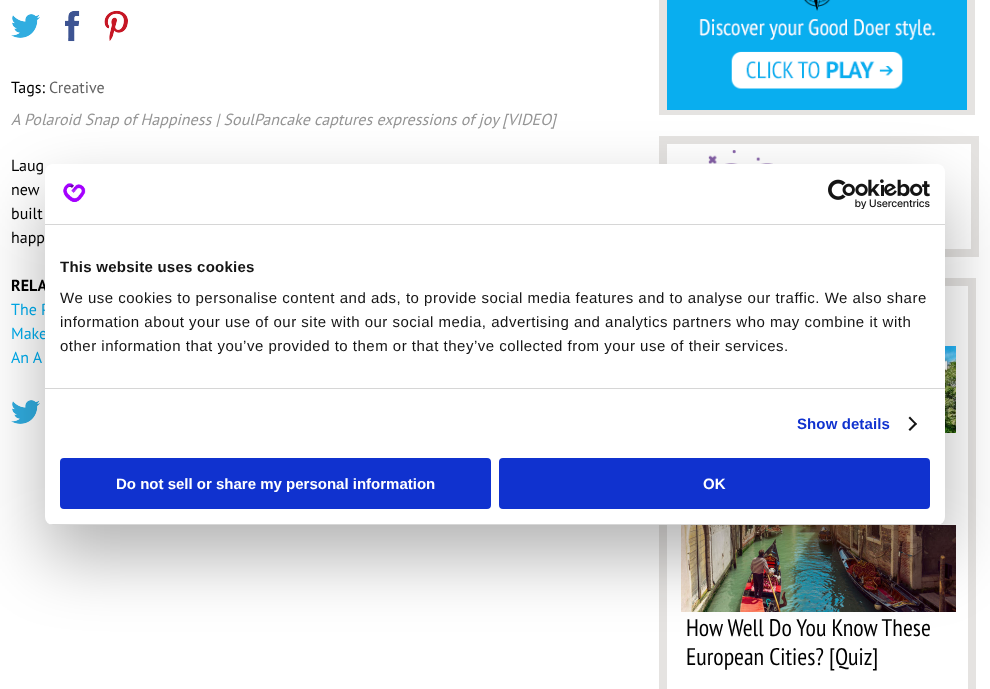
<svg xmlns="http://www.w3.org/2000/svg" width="990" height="689">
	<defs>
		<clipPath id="clip1"><rect x="45" y="164" width="900" height="361" rx="8" /></clipPath>
	</defs>
	<rect width="100%" height="100%" fill="#FFFFFF" />
	<image x="11" y="14" width="29" height="24" href="assets/img1.png" />
	<image x="65" y="10" width="15" height="32" href="assets/img2.png" />
	<image x="104" y="10" width="24" height="31" href="assets/img3.png" />
	<text x="11" y="93" font-family="PT Sans" font-size="16" fill="#000000">Tags:</text>
	<text x="49" y="93" font-family="PT Sans" font-size="16" fill="#636363">Creative</text>
	<text x="11" y="125" font-family="PT Sans" font-size="16" font-style="italic" fill="#959595">A Polaroid Snap of Happiness | SoulPancake captures expressions of joy [VIDEO]</text>
	<g font-family="PT Sans" font-size="16" fill="#000000">
		<text x="11" y="171">Laug</text>
		<text x="11" y="195">new</text>
		<text x="11" y="219">built</text>
		<text x="11" y="243">happ</text>
	</g>
	<text x="11" y="291" font-family="PT Sans" font-size="16" font-weight="700" fill="#000000">RELA</text>
	<g font-family="PT Sans" font-size="16" fill="#00AEEF">
		<text x="11" y="315">The P</text>
		<text x="11" y="339">Make</text>
		<text x="11" y="363">An A</text>
	</g>
	<image x="11" y="400" width="29" height="24" href="assets/img1.png" />
	<rect x="663" y="-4" width="308" height="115" fill="none" stroke="#E5E3E1" stroke-width="8" />
	<image x="667" y="0" width="300" height="110" href="assets/img4.png" />
	<rect x="663" y="140" width="312" height="113" fill="none" stroke="#E5E3E1" stroke-width="8" />
	<image x="708" y="150" width="65" height="14" href="assets/img5.png" />
	<rect x="663" y="282" width="309" height="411" fill="none" stroke="#E5E3E1" stroke-width="8" />
	<image x="945" y="346" width="11" height="87" href="assets/img6.png" />
	<image x="945" y="358" width="6" height="15" href="assets/img7.png" />
	<image x="681" y="525" width="275" height="87" href="assets/img8.png" />
	<g font-family="PT Sans Narrow" font-size="24" fill="#000000">
		<text x="686" y="636">How Well Do You Know These</text>
		<text x="686" y="665">European Cities? [Quiz]</text>
	</g>
	<rect x="45" y="196" width="900" height="361" rx="8" fill="#000000" fill-opacity="0.3" filter="blur(34px)" />
	<rect x="45" y="164" width="900" height="361" rx="8" fill="#FFFFFF" />
	<rect x="45" y="224" width="900" height="1" fill="#D6D6D6" />
	<image x="63" y="183" width="23" height="19" href="assets/img9.png" />
	<image x="828" y="179" width="102" height="30" href="assets/img10.png" />
	<rect x="45" y="388" width="900" height="1" fill="#D6D6D6" />
	<text x="60" y="272" font-family="Liberation Sans" font-size="15" font-weight="700" letter-spacing="0.25" fill="#141414">This website uses cookies</text>
	<g font-family="Liberation Sans" font-size="15" letter-spacing="0.5" fill="#141414">
		<text x="60" y="303">We use cookies to personalise content and ads, to provide social media features and to analyse our traffic. We also share</text>
		<text x="60" y="327">information about your use of our site with our social media, advertising and analytics partners who may combine it with</text>
		<text x="60" y="351">other information that you’ve provided to them or that they’ve collected from your use of their services.</text>
	</g>
	<text x="797" y="429" font-family="Liberation Sans" font-size="15" font-weight="700" letter-spacing="0.1" fill="#1032CF">Show details</text>
	<path d="M910 416.5L917 424L915.5 425L908.5 418Z" fill="#141414" />
	<path d="M915.5 422.5L917 424L910 431L908.5 429.5Z" fill="#141414" />
	<g clip-path="url(#clip1)">
		<rect x="45" y="524" width="900" height="1" fill="#D6D6D6" />
	</g>
	<rect x="61" y="459" width="429" height="49" rx="3" fill="#1032CF" stroke="#1032CF" stroke-width="2" />
	<text x="116" y="489" font-family="Liberation Sans" font-size="15" font-weight="700" fill="#FFFFFF">Do not sell or share my personal information</text>
	<rect x="500" y="459" width="429" height="49" rx="3" fill="#1032CF" stroke="#1032CF" stroke-width="2" />
	<text x="703" y="489" font-family="Liberation Sans" font-size="15" font-weight="700" fill="#FFFFFF">OK</text>
</svg>
